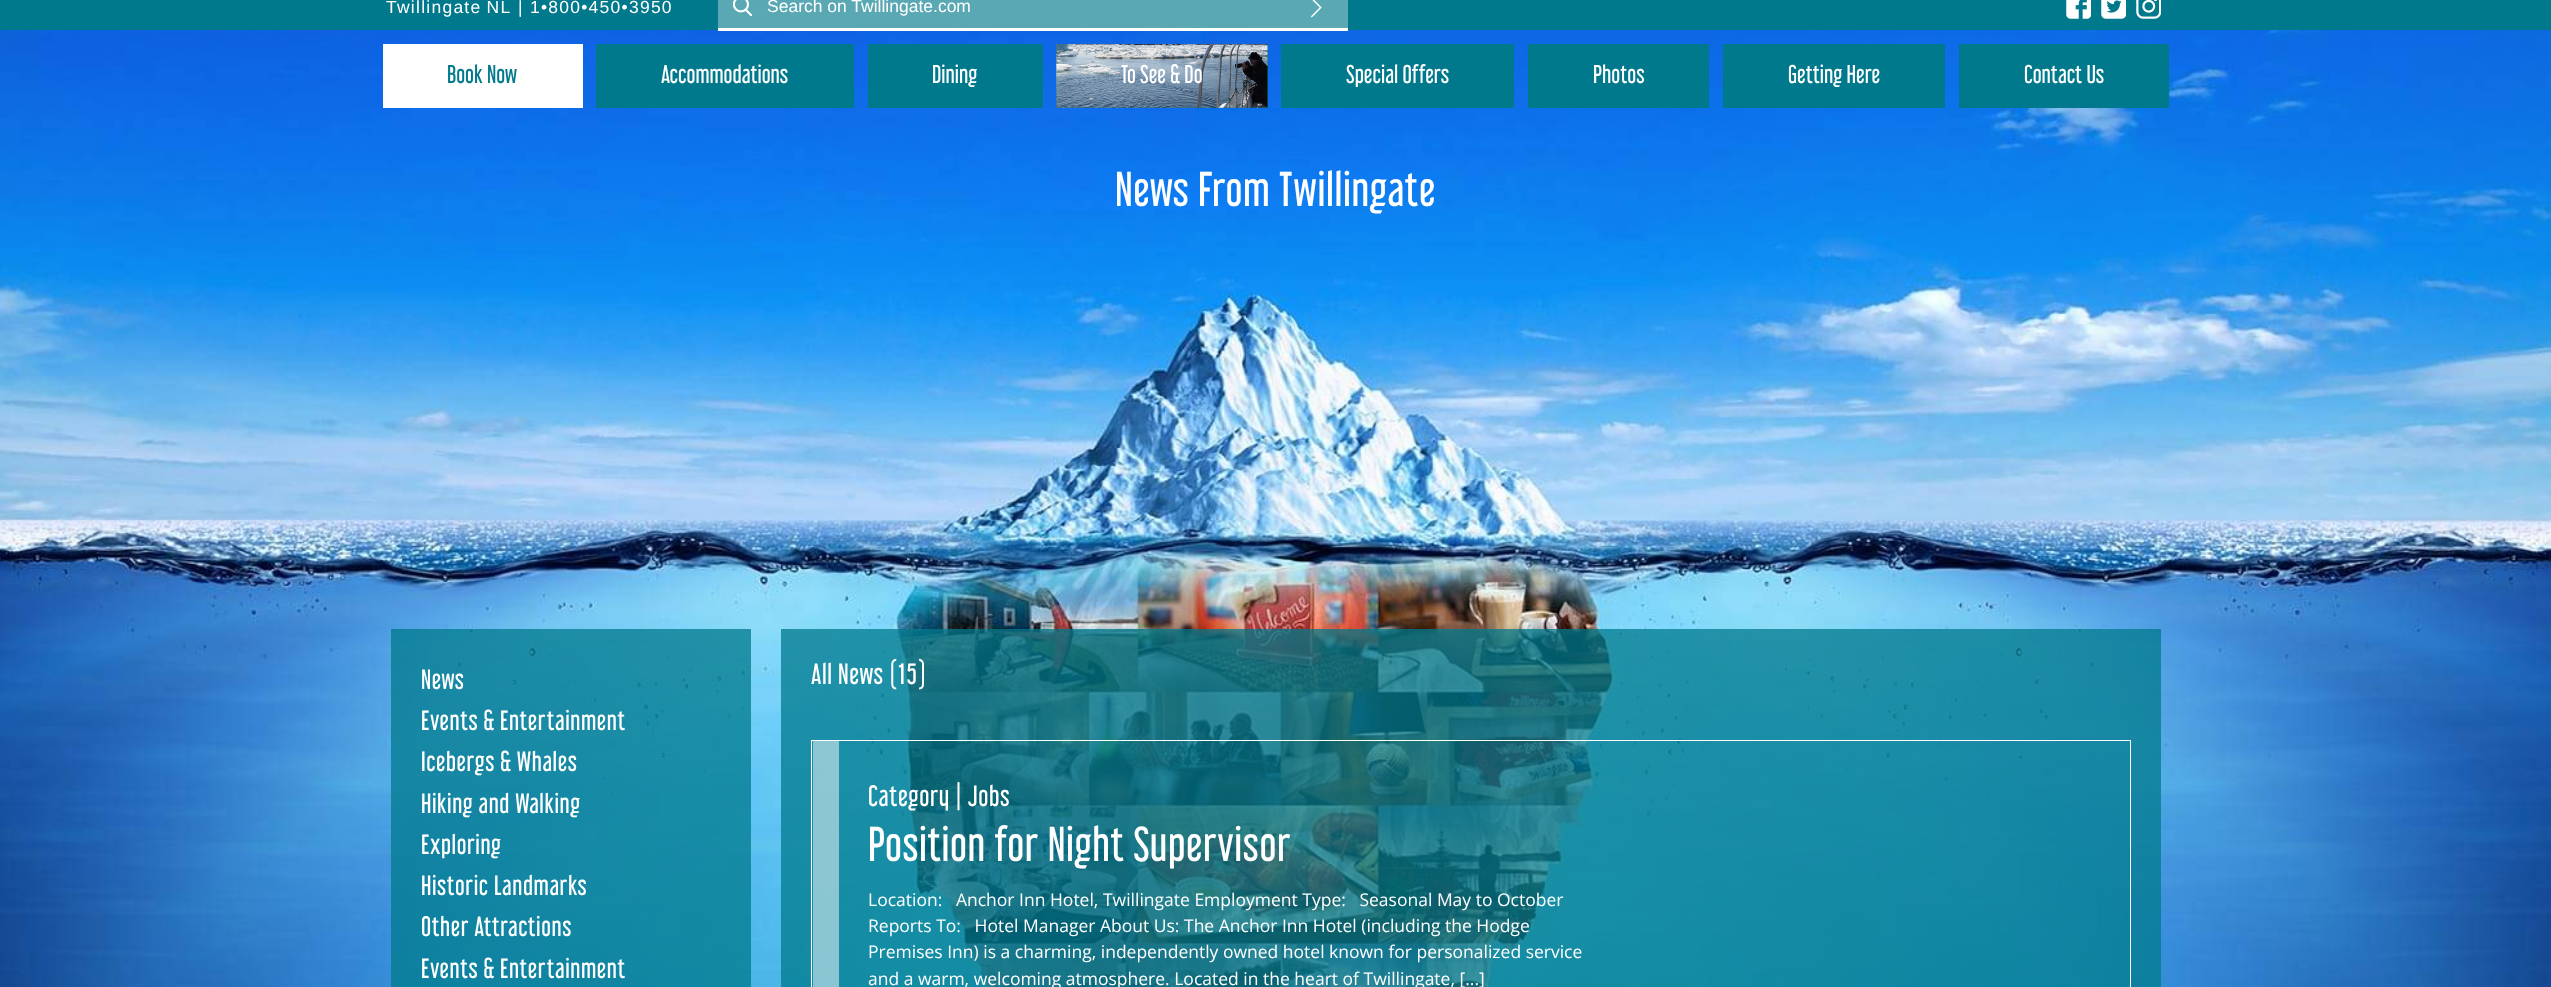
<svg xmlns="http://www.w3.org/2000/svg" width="2551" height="987">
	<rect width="100%" height="100%" fill="#FFFFFF" />
	<image x="0" y="30" width="2551" height="957" href="assets/img1.png" />
	<rect x="0" y="0" width="2551" height="30" fill="#00798C" />
	<g font-family="Liberation Sans" font-size="17.5" letter-spacing="1.25" fill="#FFFFFF">
		<text x="386" y="13" word-spacing="-1">Twillingate NL</text>
		<text x="518" y="13">| 1•800•450•3950</text>
	</g>
	<rect x="718" y="0" width="630" height="28" fill="#59A8B4" />
	<image x="733" y="0" width="20" height="16" href="assets/img2.png" />
	<rect x="718" y="28" width="630" height="3" fill="#FFFFFF" />
	<text x="767" y="12" font-family="Liberation Sans" font-size="17.5" fill="#FFFFFF">Search on Twillingate.com</text>
	<image x="1310" y="0" width="12" height="18" href="assets/img3.png" />
	<image x="2066" y="0" width="25" height="19" href="assets/img4.png" />
	<image x="2101" y="0" width="25" height="19" href="assets/img5.png" />
	<image x="2136" y="0" width="25" height="19" href="assets/img6.png" />
	<rect x="383" y="44" width="200" height="64" fill="#FFFFFF" />
	<text x="447" y="83" font-family="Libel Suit" font-size="23" fill="#00798C">Book Now</text>
	<rect x="596" y="44" width="258" height="64" fill="#00798C" />
	<text x="661" y="83" font-family="Libel Suit" font-size="23" fill="#FFFFFF">Accommodations</text>
	<rect x="868" y="44" width="175" height="64" fill="#00798C" />
	<text x="932" y="83" font-family="Libel Suit" font-size="23" fill="#FFFFFF">Dining</text>
	<rect x="1056" y="44" width="212" height="64" fill="#00798C" />
	<image x="1056" y="44" width="212" height="64" href="assets/img7.png" />
	<text x="1121" y="83" font-family="Libel Suit" font-size="23" fill="#FFFFFF">To See &amp; Do</text>
	<rect x="1281" y="44" width="233" height="64" fill="#00798C" />
	<text x="1346" y="83" font-family="Libel Suit" font-size="23" fill="#FFFFFF">Special Offers</text>
	<rect x="1528" y="44" width="181" height="64" fill="#00798C" />
	<text x="1593" y="83" font-family="Libel Suit" font-size="23" fill="#FFFFFF">Photos</text>
	<rect x="1723" y="44" width="222" height="64" fill="#00798C" />
	<text x="1788" y="83" font-family="Libel Suit" font-size="23" fill="#FFFFFF">Getting Here</text>
	<rect x="1959" y="44" width="210" height="64" fill="#00798C" />
	<text x="2024" y="83" font-family="Libel Suit" font-size="23" fill="#FFFFFF">Contact Us</text>
	<text x="1115" y="206" font-family="Libel Suit" font-size="43.75" letter-spacing="0.6" fill="#FFFFFF">News From Twillingate</text>
	<rect x="391" y="629" width="360" height="358" fill="#00798C" fill-opacity="0.75" />
	<g font-family="Libel Suit" font-size="25" letter-spacing="0.6" fill="#FFFFFF">
		<text x="421" y="689">News</text>
		<text x="421" y="730">Events &amp; Entertainment</text>
		<text x="421" y="771">Icebergs &amp; Whales</text>
		<text x="421" y="813">Hiking and Walking</text>
		<text x="421" y="854">Exploring</text>
		<text x="421" y="895">Historic Landmarks</text>
		<text x="421" y="936">Other Attractions</text>
		<text x="421" y="978">Events &amp; Entertainment</text>
	</g>
	<rect x="781" y="629" width="1380" height="358" fill="#00798C" fill-opacity="0.75" />
	<text x="811" y="684" font-family="Libel Suit" font-size="26.25" letter-spacing="0.6" fill="#FFFFFF">All News</text>
	<text x="889" y="684" font-family="Libel Suit" font-size="26.25" letter-spacing="2" fill="#FFFFFF">(15)</text>
	<rect x="811.5" y="740.5" width="1319" height="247" fill="none" stroke="#FFFFFF" />
	<rect x="813" y="741" width="26" height="246" fill="#FFFFFF" fill-opacity="0.5" />
	<text x="868" y="806" font-family="Libel Suit" font-size="26.25" letter-spacing="0.6" fill="#FFFFFF">Category | Jobs</text>
	<text x="868" y="861" font-family="Libel Suit" font-size="43.75" letter-spacing="0.6" fill="#FFFFFF">Position for Night Supervisor</text>
	<g font-family="Open Sans" font-size="17.5" fill="#FFFFFF">
		<text x="868" y="906" xml:space="preserve">Location:   Anchor Inn Hotel, Twillingate Employment Type:   Seasonal May to October</text>
		<text x="868" y="932" xml:space="preserve">Reports To:   Hotel Manager About Us: The Anchor Inn Hotel (including the Hodge</text>
		<text x="868" y="958">Premises Inn) is a charming, independently owned hotel known for personalized service</text>
		<text x="868" y="985">and a warm, welcoming atmosphere. Located in the heart of Twillingate, [...]</text>
	</g>
</svg>
